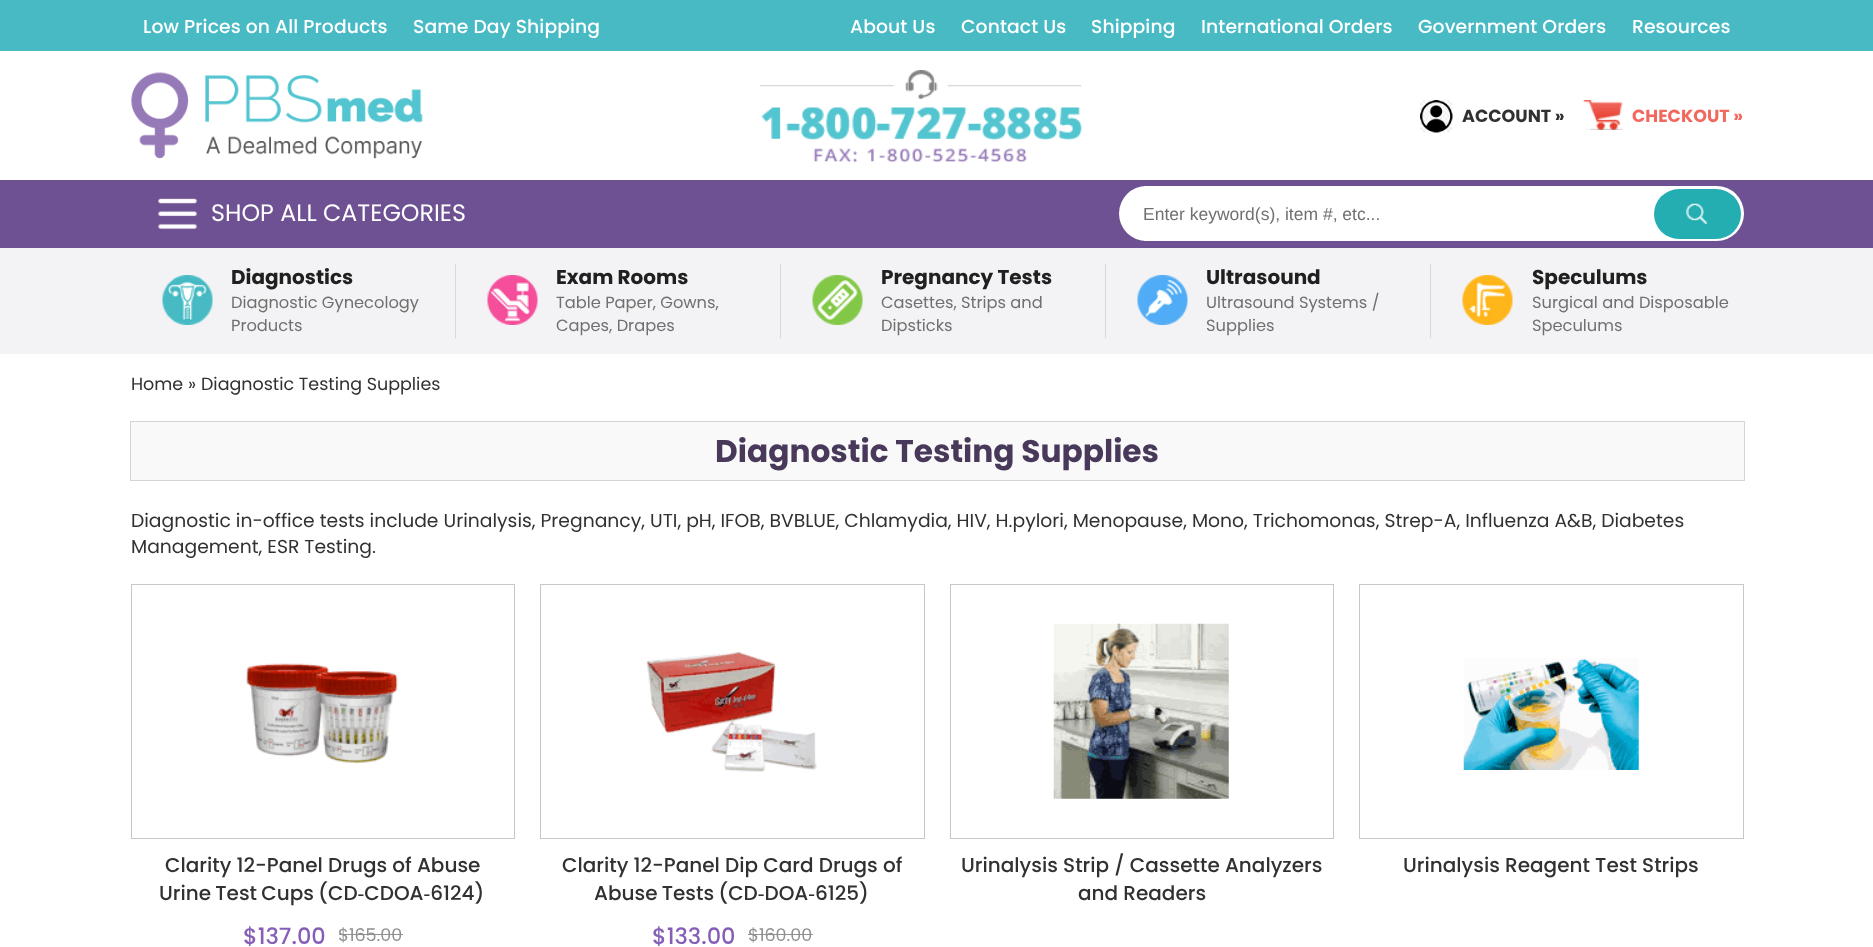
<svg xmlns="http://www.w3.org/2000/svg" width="1873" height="947">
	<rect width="100%" height="100%" fill="#FFFFFF" />
	<rect x="0" y="0" width="1873" height="51" fill="#47BAC4" />
	<g font-family="Poppins" font-size="18.75" font-weight="500" letter-spacing="0.1" fill="#FFFFFF">
		<text x="143" y="33">Low Prices on All Products</text>
		<text x="413" y="33">Same Day Shipping</text>
		<text x="850" y="33">About Us</text>
		<text x="961" y="33">Contact Us</text>
		<text x="1091" y="33">Shipping</text>
		<text x="1201" y="33">International Orders</text>
		<text x="1418" y="33">Government Orders</text>
		<text x="1632" y="33">Resources</text>
	</g>
	<image x="131" y="72" width="292" height="87" href="assets/img1.png" />
	<image x="760" y="70" width="322" height="29" href="assets/img2.png" />
	<image x="761" y="107" width="321" height="33" href="assets/img3.png" />
	<image x="813" y="148" width="214" height="15" href="assets/img4.png" />
	<image x="1420" y="100" width="33" height="33" href="assets/img5.png" />
	<text x="1462" y="122" font-family="Poppins" font-size="17.5" font-weight="700" fill="#313131">ACCOUNT »</text>
	<image x="1583" y="100" width="40" height="30" href="assets/img6.png" />
	<text x="1632" y="122" font-family="Poppins" font-size="17.5" font-weight="700" fill="#F2685F">CHECKOUT »</text>
	<rect x="0" y="180" width="1873" height="68" fill="#6E5193" />
	<image x="158" y="198" width="39" height="32" href="assets/img7.png" />
	<text x="211" y="221" font-family="Poppins" font-size="23.75" fill="#FFFFFF">SHOP ALL CATEGORIES</text>
	<rect x="1119" y="186" width="625" height="55" rx="27.5" fill="#FFFFFF" />
	<rect x="1144" y="186" width="2" height="55" fill="#FFFFFF" />
	<text x="1143" y="220" font-family="Liberation Sans" font-size="17.5" fill="#707070">Enter keyword(s), item #, etc...</text>
	<rect x="1654" y="189" width="87" height="50" rx="25" fill="#24AEB1" />
	<image x="1686" y="203" width="22" height="21" href="assets/img8.png" />
	<rect x="0" y="248" width="1873" height="106" fill="#F3F3F5" />
	<rect x="455" y="264" width="1" height="74" fill="#D7D7D7" />
	<image x="162" y="275" width="51" height="50" href="assets/img9.png" />
	<text x="231" y="284" font-family="Poppins" font-size="20" font-weight="700" fill="#202020">Diagnostics</text>
	<g font-family="Poppins" font-size="16.25" fill="#707070">
		<text x="231" y="308">Diagnostic Gynecology</text>
		<text x="231" y="331">Products</text>
	</g>
	<rect x="780" y="264" width="1" height="74" fill="#D7D7D7" />
	<image x="487" y="275" width="51" height="50" href="assets/img10.png" />
	<text x="556" y="284" font-family="Poppins" font-size="20" font-weight="700" fill="#202020">Exam Rooms</text>
	<g font-family="Poppins" font-size="16.25" fill="#707070">
		<text x="556" y="308">Table Paper, Gowns,</text>
		<text x="556" y="331">Capes, Drapes</text>
	</g>
	<rect x="1105" y="264" width="1" height="74" fill="#D7D7D7" />
	<image x="812" y="275" width="51" height="50" href="assets/img11.png" />
	<text x="881" y="284" font-family="Poppins" font-size="20" font-weight="700" fill="#202020">Pregnancy Tests</text>
	<g font-family="Poppins" font-size="16.25" fill="#707070">
		<text x="881" y="308">Casettes, Strips and</text>
		<text x="881" y="331">Dipsticks</text>
	</g>
	<rect x="1430" y="264" width="1" height="74" fill="#D7D7D7" />
	<image x="1137" y="275" width="51" height="50" href="assets/img12.png" />
	<text x="1206" y="284" font-family="Poppins" font-size="20" font-weight="700" fill="#202020">Ultrasound</text>
	<g font-family="Poppins" font-size="16.25" fill="#707070">
		<text x="1206" y="308">Ultrasound Systems /</text>
		<text x="1206" y="331">Supplies</text>
	</g>
	<image x="1462" y="275" width="51" height="50" href="assets/img13.png" />
	<text x="1532" y="284" font-family="Poppins" font-size="20" font-weight="700" fill="#202020">Speculums</text>
	<g font-family="Poppins" font-size="16.25" fill="#707070">
		<text x="1532" y="308">Surgical and Disposable</text>
		<text x="1532" y="331">Speculums</text>
	</g>
	<g font-family="Poppins" font-size="17.5" fill="#313131">
		<text x="131" y="390">Home</text>
		<text x="188" y="390">»</text>
		<text x="201" y="390">Diagnostic Testing Supplies</text>
	</g>
	<rect x="130.5" y="421.5" width="1614" height="59" fill="#F9F9F9" stroke="#D5D4D0" />
	<text x="715" y="462" font-family="Poppins" font-size="31.25" font-weight="700" fill="#48395A">Diagnostic Testing Supplies</text>
	<g font-family="Poppins" font-size="18.75" fill="#313131">
		<text x="131" y="527">Diagnostic in-office tests include Urinalysis, Pregnancy, UTI, pH, IFOB, BVBLUE, Chlamydia, HIV, H.pylori, Menopause, Mono, Trichomonas, Strep-A, Influenza A&amp;B, Diabetes</text>
		<text x="131" y="553">Management, ESR Testing.</text>
	</g>
	<rect x="131.5" y="584.5" width="383" height="254" fill="none" stroke="#C7C7C7" />
	<image x="246" y="663" width="152" height="101" href="assets/img14.png" />
	<g font-family="Poppins" font-size="20" font-weight="500" fill="#313131">
		<text x="165" y="872">Clarity 12-Panel Drugs of Abuse</text>
		<text x="159" y="900" word-spacing="-1">Urine Test Cups (CD‑CDOA‑6124)</text>
	</g>
	<text x="243" y="944" font-family="Poppins" font-size="22.5" font-weight="500" fill="#865EB7">$137.00</text>
	<text x="338" y="941" font-family="Poppins" font-size="17.5" fill="#909090">$165.00</text>
	<rect x="339" y="934" width="64" height="1" fill="#909090" />
	<rect x="540.5" y="584.5" width="384" height="254" fill="none" stroke="#C7C7C7" />
	<image x="646" y="651" width="171" height="121" href="assets/img15.png" />
	<g font-family="Poppins" font-size="20" font-weight="500" fill="#313131">
		<text x="562" y="872">Clarity 12-Panel Dip Card Drugs of</text>
		<text x="594" y="900" word-spacing="-1">Abuse Tests (CD‑DOA‑6125)</text>
	</g>
	<text x="652" y="944" font-family="Poppins" font-size="22.5" font-weight="500" fill="#865EB7">$133.00</text>
	<text x="748" y="941" font-family="Poppins" font-size="17.5" fill="#909090">$160.00</text>
	<rect x="748" y="934" width="65" height="1" fill="#909090" />
	<rect x="950.5" y="584.5" width="383" height="254" fill="none" stroke="#C7C7C7" />
	<image x="1053" y="623" width="176" height="176" href="assets/img16.png" />
	<g font-family="Poppins" font-size="20" font-weight="500" fill="#313131">
		<text x="961" y="872">Urinalysis Strip / Cassette Analyzers</text>
		<text x="1078" y="900">and Readers</text>
	</g>
	<rect x="1359.5" y="584.5" width="384" height="254" fill="none" stroke="#C7C7C7" />
	<image x="1463" y="658" width="176" height="112" href="assets/img17.png" />
	<text x="1403" y="872" font-family="Poppins" font-size="20" font-weight="500" fill="#313131">Urinalysis Reagent Test Strips</text>
</svg>
